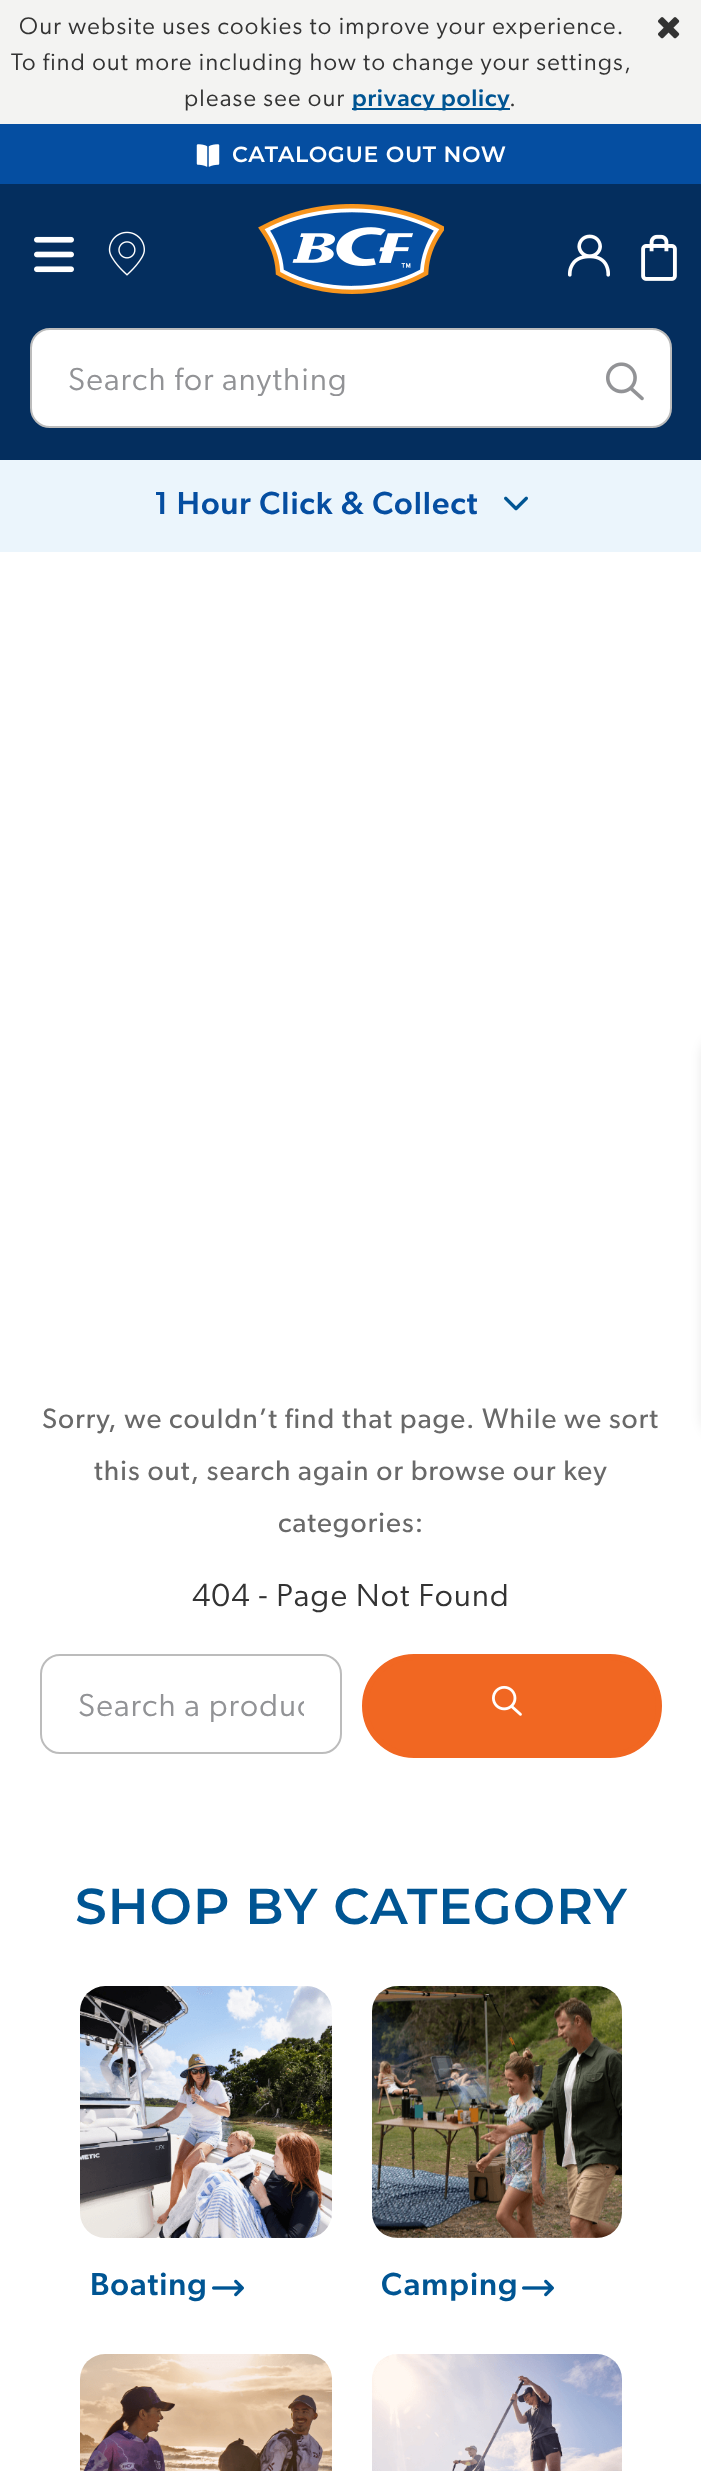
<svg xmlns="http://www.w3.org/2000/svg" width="701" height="2471">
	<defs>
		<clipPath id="clip1"><rect x="68" y="364" width="482" height="32" /></clipPath>
		<clipPath id="clip2"><rect x="78" y="1690" width="226" height="32" /></clipPath>
	</defs>
	<rect width="100%" height="100%" fill="#FFFFFF" />
	<rect x="0" y="0" width="701" height="124" fill="#F3F3F2" />
	<g font-family="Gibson" font-size="24" font-weight="300" letter-spacing="1.28" fill="#333333">
		<text x="19" y="34">Our website uses cookies to improve your experience.</text>
		<text x="11" y="70">To find out more including how to change your settings,</text>
		<text x="184" y="106">please see our</text>
	</g>
	<rect x="352" y="108" width="158" height="2" fill="#005593" />
	<text x="352" y="106" font-family="Gibson" font-size="24" font-weight="500" letter-spacing="0.75" fill="#005593">privacy policy</text>
	<text x="509" y="106" font-family="Gibson" font-size="24" font-weight="300" letter-spacing="1.28" fill="#333333">.</text>
	<image x="658" y="17" width="22" height="22" href="assets/img1.png" />
	<rect x="0" y="124" width="701" height="60" fill="#054EA1" />
	<image x="196" y="144" width="24" height="23" href="assets/img2.png" />
	<text x="232" y="162" font-family="Montserrat" font-size="22" font-weight="600" letter-spacing="0.7" fill="#FFFFFF">CATALOGUE OUT NOW</text>
	<rect x="0" y="184" width="701" height="276" fill="#042E5E" />
	<image x="34" y="236" width="40" height="37" href="assets/img3.png" />
	<image x="258" y="204" width="186" height="90" href="assets/img4.png" />
	<image x="108" y="231" width="37" height="45" href="assets/img5.png" />
	<image x="567" y="234" width="43" height="43" href="assets/img6.png" />
	<image x="641" y="234" width="36" height="47" href="assets/img7.png" />
	<rect x="31" y="329" width="640" height="98" rx="19" fill="#FFFFFF" stroke="#BCBCBC" stroke-width="2" />
	<g clip-path="url(#clip1)">
		<text x="68" y="390" font-family="Gibson" font-size="32" font-weight="300" letter-spacing="1.28" fill="#929396">Search for anything</text>
	</g>
	<image x="606" y="362" width="38" height="39" href="assets/img8.png" />
	<rect x="0" y="460" width="701" height="92" fill="#EBF5FC" />
	<text x="154" y="514" font-family="Gibson" font-size="32" font-weight="500" letter-spacing="1" fill="#054EA1">1 Hour Click &amp; Collect</text>
	<image x="504" y="496" width="24" height="15" href="assets/img9.png" />
	<rect x="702" y="1036" width="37" height="400" rx="20" fill="#000000" fill-opacity="0.1" filter="blur(6px)" />
	<g font-family="Gibson" font-size="28.1" letter-spacing="1.1" fill="#696969">
		<text x="42" y="1428">Sorry, we couldn’t find that page. While we sort</text>
		<text x="94" y="1480">this out, search again or browse our key</text>
		<text x="278" y="1532">categories:</text>
	</g>
	<text x="192" y="1606" font-family="Gibson" font-size="32" font-weight="300" letter-spacing="1.28" fill="#333333">404 - Page Not Found</text>
	<rect x="41" y="1655" width="300" height="98" rx="19" fill="none" stroke="#BCBCBC" stroke-width="2" />
	<g clip-path="url(#clip2)">
		<text x="78" y="1716" font-family="Gibson" font-size="32" font-weight="300" letter-spacing="1.28" fill="#929396">Search a produc</text>
	</g>
	<rect x="365" y="1657" width="294" height="98" rx="49" fill="#F16722" stroke="#F16722" stroke-width="6" />
	<image x="492" y="1685" width="30" height="31" href="assets/img10.png" />
	<text x="75" y="1924" font-family="Montserrat" font-size="50.4" font-weight="600" letter-spacing="1" fill="#005593">SHOP BY CATEGORY</text>
	<image x="80" y="1986" width="252" height="252" href="assets/img11.png" />
	<text x="90" y="2295" font-family="Gibson" font-size="32" font-weight="500" letter-spacing="1" fill="#005593">Boating</text>
	<image x="212" y="2279" width="32" height="18" href="assets/img12.png" />
	<image x="372" y="1986" width="250" height="252" href="assets/img13.png" />
	<text x="381" y="2295" font-family="Gibson" font-size="32" font-weight="500" letter-spacing="1" fill="#005593">Camping</text>
	<image x="522" y="2279" width="32" height="18" href="assets/img12.png" />
	<image x="80" y="2354" width="252" height="117" href="assets/img14.png" />
	<image x="372" y="2354" width="250" height="117" href="assets/img15.png" />
</svg>
